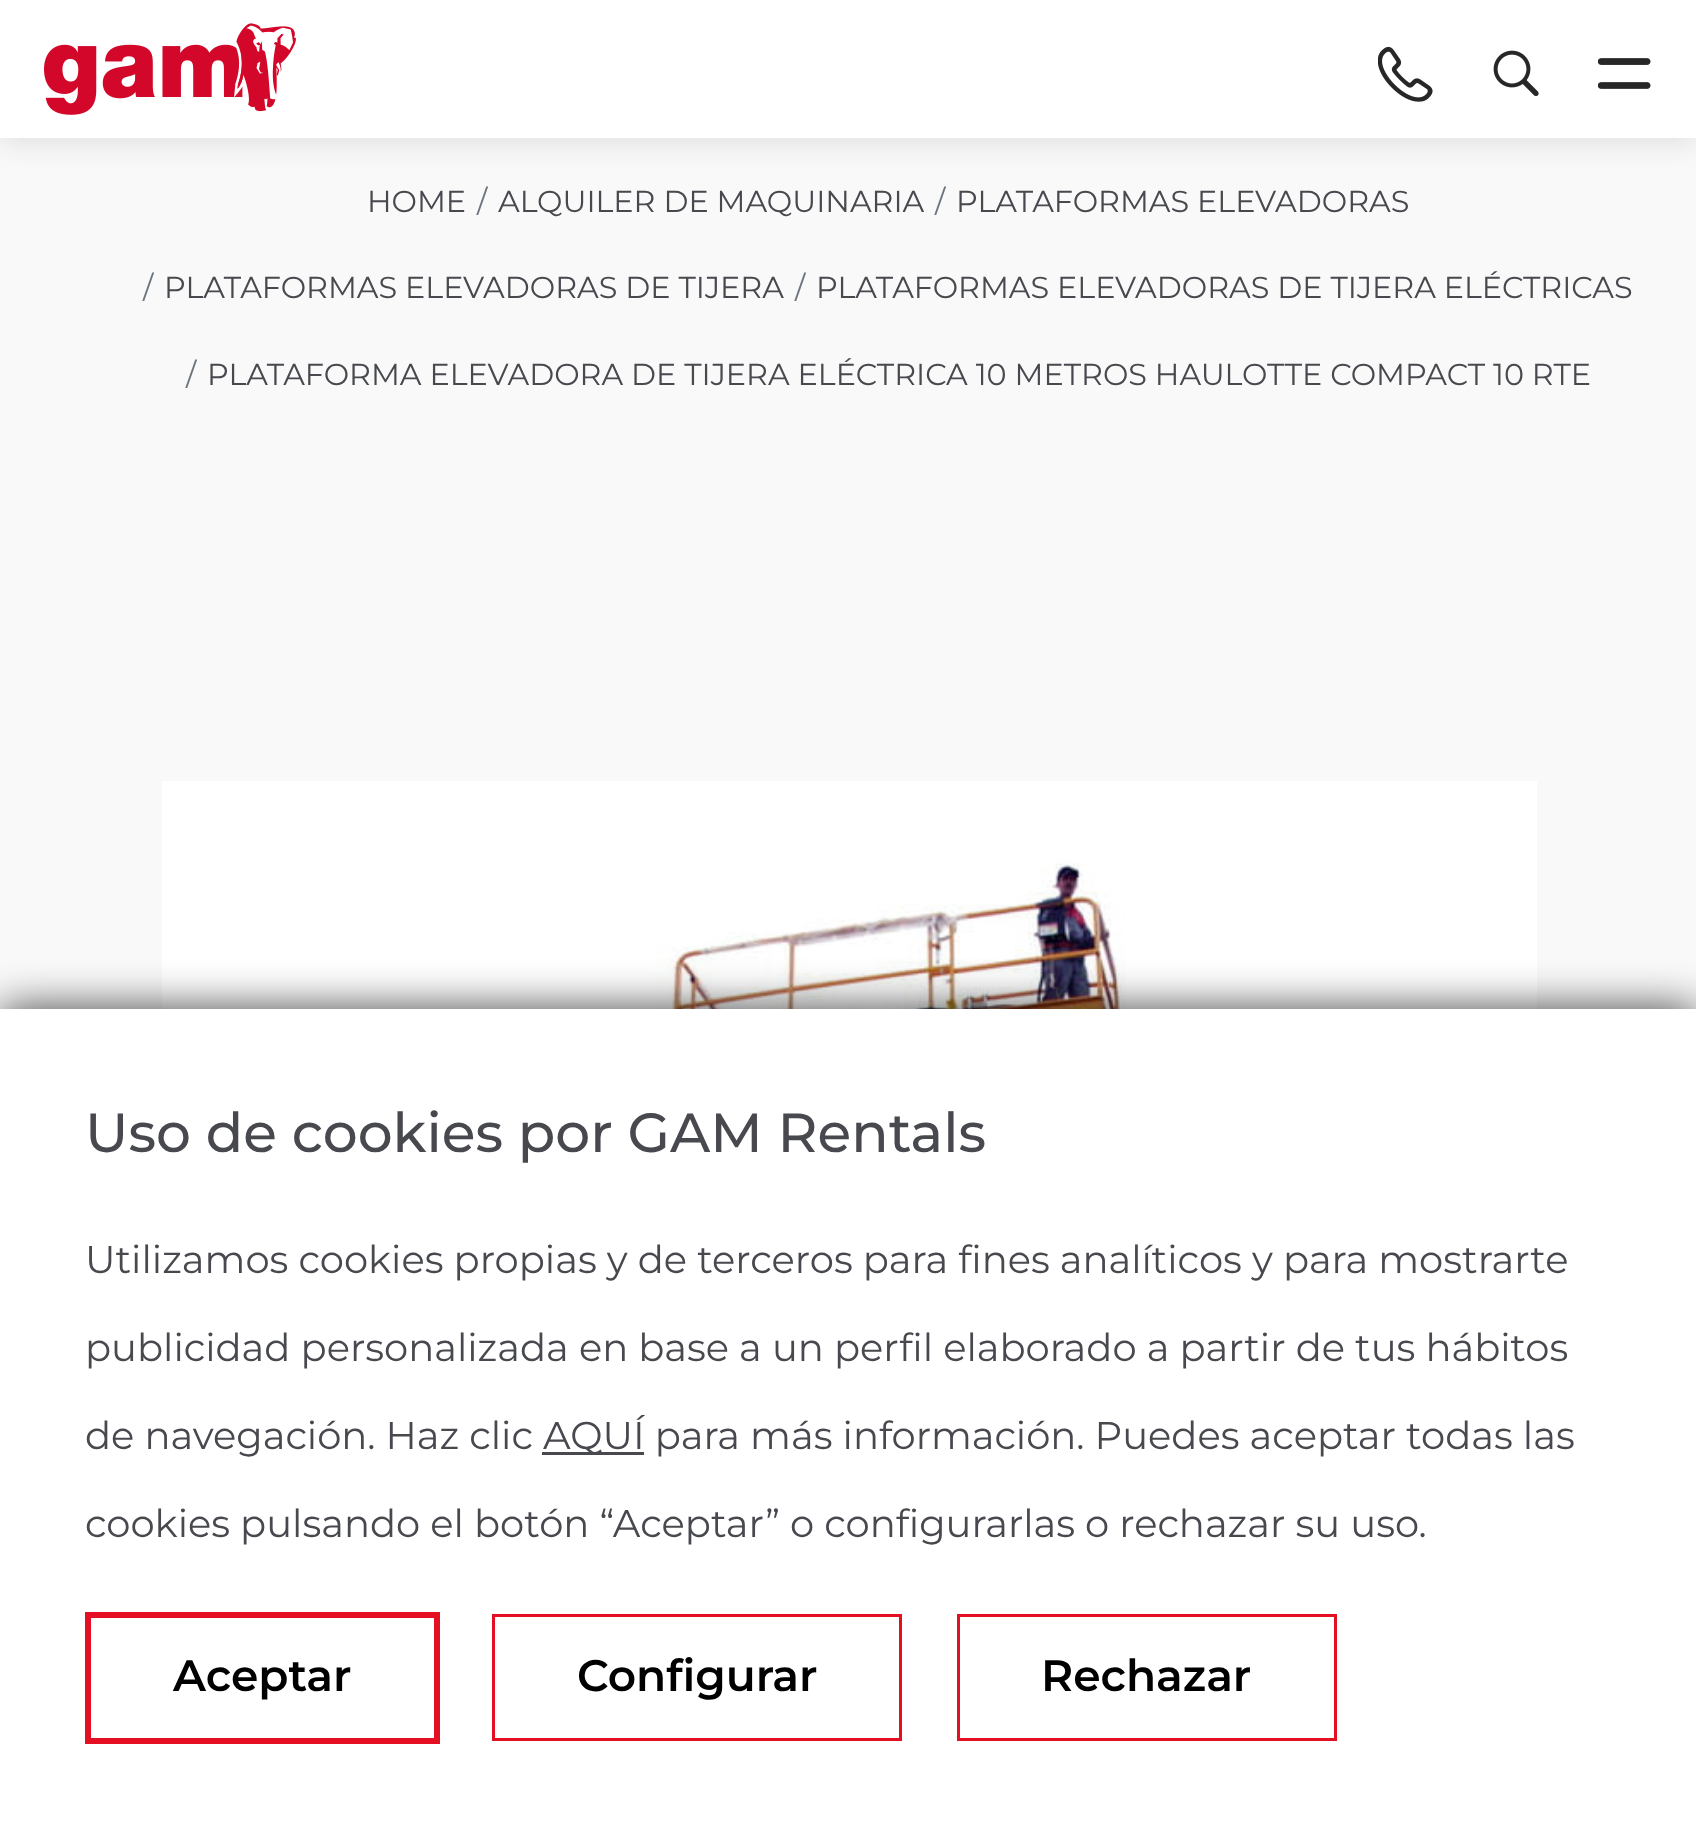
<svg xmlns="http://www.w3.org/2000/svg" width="1696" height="1824">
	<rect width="100%" height="100%" fill="#F9F9F9" />
	<rect x="0" y="6" width="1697" height="137" fill="#000000" fill-opacity="0.1" filter="blur(14px)" />
	<rect x="0" y="0" width="1696" height="138" fill="#FFFFFF" />
	<image x="44" y="23" width="252" height="92" href="assets/img1.png" />
	<image x="1378" y="47" width="55" height="55" href="assets/img2.png" />
	<image x="1493" y="50" width="46" height="47" href="assets/img3.png" />
	<image x="1598" y="58" width="53" height="31" href="assets/img4.png" />
	<text x="367" y="212" font-family="Montserrat" font-size="30.25" fill="#47494E">HOME</text>
	<text x="477" y="212" font-family="Montserrat" font-size="30.25" fill="#6C757D">/</text>
	<text x="498" y="212" font-family="Montserrat" font-size="30.25" fill="#47494E">ALQUILER DE MAQUINARIA</text>
	<text x="935" y="212" font-family="Montserrat" font-size="30.25" fill="#6C757D">/</text>
	<text x="956" y="212" font-family="Montserrat" font-size="30.25" fill="#47494E">PLATAFORMAS ELEVADORAS</text>
	<text x="143" y="298" font-family="Montserrat" font-size="30.25" fill="#6C757D">/</text>
	<text x="164" y="298" font-family="Montserrat" font-size="30.25" fill="#47494E">PLATAFORMAS ELEVADORAS DE TIJERA</text>
	<text x="795" y="298" font-family="Montserrat" font-size="30.25" fill="#6C757D">/</text>
	<text x="816" y="298" font-family="Montserrat" font-size="30.25" fill="#47494E">PLATAFORMAS ELEVADORAS DE TIJERA ELÉCTRICAS</text>
	<text x="186" y="385" font-family="Montserrat" font-size="30.25" fill="#6C757D">/</text>
	<text x="207" y="385" font-family="Montserrat" font-size="30.25" fill="#47494E">PLATAFORMA ELEVADORA DE TIJERA ELÉCTRICA 10 METROS HAULOTTE COMPACT 10 RTE</text>
	<image x="162" y="781" width="1375" height="228" href="assets/img5.png" />
	<rect x="0" y="1009" width="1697" height="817" fill="#000000" fill-opacity="0.75" filter="blur(22px)" />
	<rect x="0" y="1009" width="1696" height="815" fill="#FFFFFF" />
	<text x="85" y="1152" font-family="Montserrat" font-size="55" font-weight="500" fill="#47494E">Uso de cookies por GAM Rentals</text>
	<g font-family="Montserrat" font-size="38.5" fill="#47494E">
		<text x="85" y="1273">Utilizamos cookies propias y de terceros para fines analíticos y para mostrarte</text>
		<text x="85" y="1361">publicidad personalizada en base a un perfil elaborado a partir de tus hábitos</text>
		<text x="85" y="1449">de navegación. Haz clic</text>
	</g>
	<rect x="542" y="1452" width="102" height="3" fill="#47494E" />
	<g font-family="Montserrat" font-size="38.5" fill="#47494E">
		<text x="543" y="1449">AQUÍ para más información. Puedes aceptar todas las</text>
		<text x="85" y="1537">cookies pulsando el botón “Aceptar” o configurarlas o rechazar su uso.</text>
	</g>
	<rect x="88" y="1615" width="349" height="126" fill="none" stroke="#E40F23" stroke-width="6" />
	<text x="173" y="1691" font-family="Montserrat" font-size="44" font-weight="600" fill="#000000">Aceptar</text>
	<rect x="493.5" y="1615.5" width="407" height="124" fill="none" stroke="#E40F23" stroke-width="3" />
	<text x="577" y="1691" font-family="Montserrat" font-size="44" font-weight="600" fill="#000000">Configurar</text>
	<rect x="958.5" y="1615.5" width="377" height="124" fill="none" stroke="#E40F23" stroke-width="3" />
	<text x="1041" y="1691" font-family="Montserrat" font-size="44" font-weight="600" fill="#000000">Rechazar</text>
</svg>
